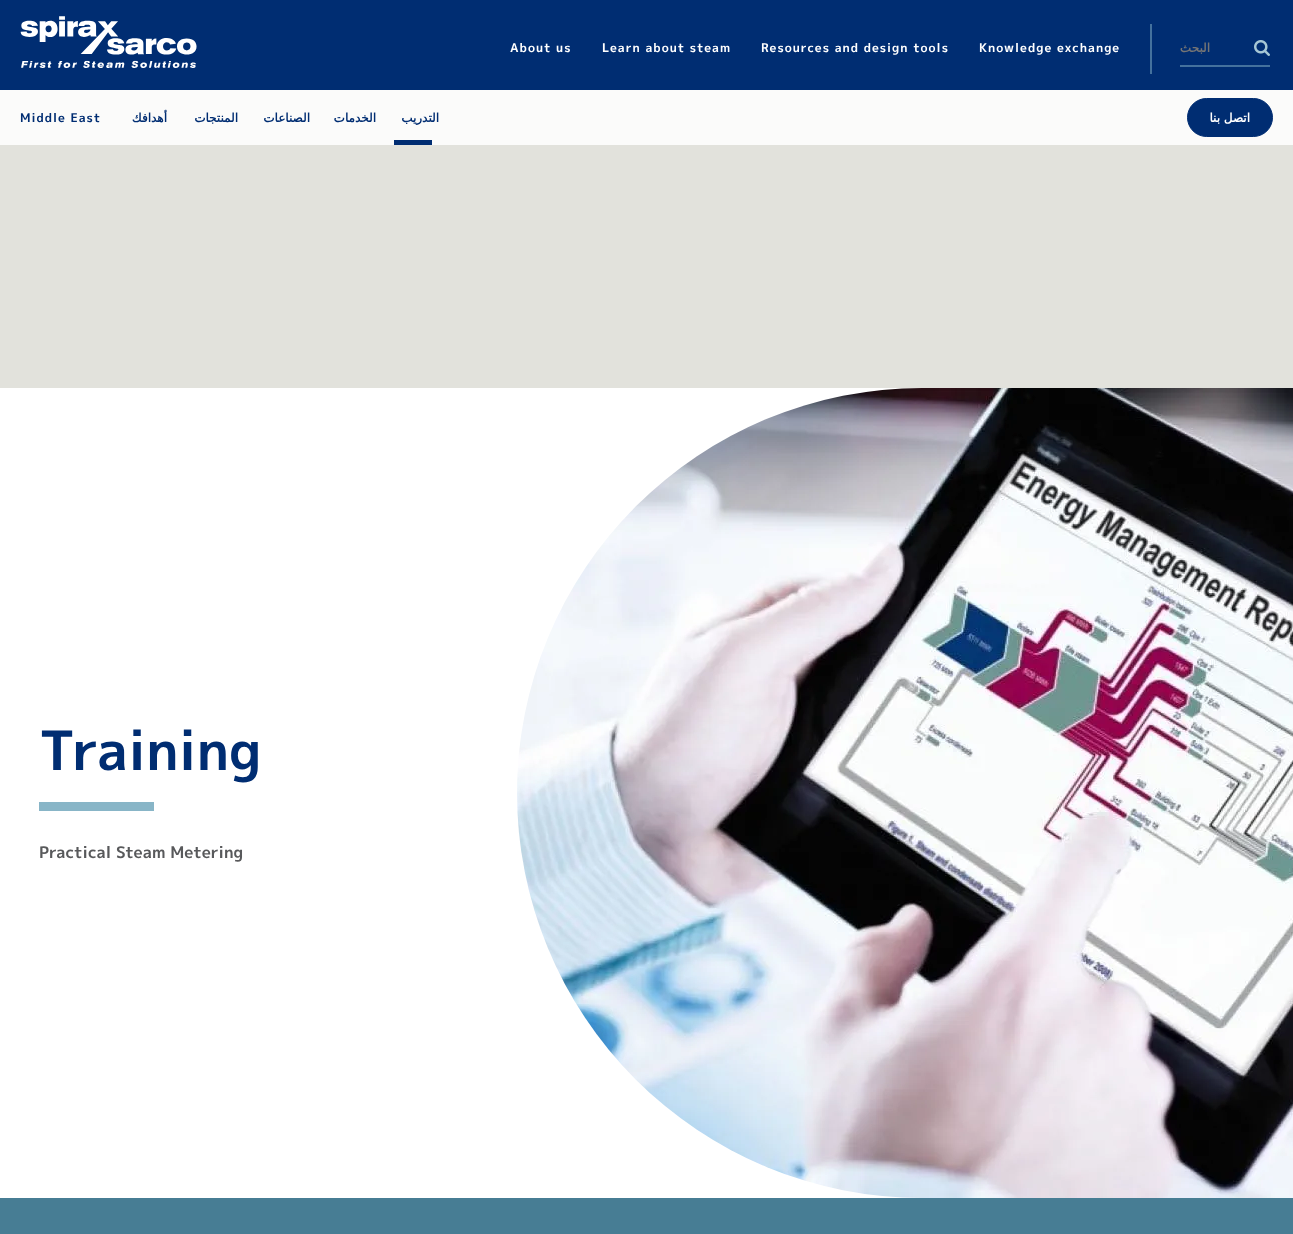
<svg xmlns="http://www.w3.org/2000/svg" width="1293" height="1234">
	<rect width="100%" height="100%" fill="#E2E2DC" />
	<rect x="0" y="0" width="1293" height="90" fill="#002D72" />
	<image x="20" y="16" width="177" height="52" href="assets/img1.png" />
	<g font-family="'M PLUS 1p'" font-size="12" font-weight="700" letter-spacing="1" fill="#FFFFFF">
		<text x="510" y="52">About us</text>
		<text x="602" y="52">Learn about steam</text>
		<text x="761" y="52">Resources and design tools</text>
		<text x="979" y="52">Knowledge exchange</text>
	</g>
	<rect x="1150" y="24" width="2" height="50" fill="#44719D" />
	<rect x="1180" y="65" width="90" height="2" fill="#44719D" />
	<text x="1210" y="52" font-family="DejaVu Sans" font-size="12" font-weight="700" direction="rtl" fill="#757575">البحث</text>
	<image x="1254" y="40" width="16" height="16" href="assets/img2.png" />
	<rect x="0" y="90" width="1293" height="55" fill="#FBFBFA" />
	<text x="20" y="122" font-family="'M PLUS 1p'" font-size="12" font-weight="700" letter-spacing="1" fill="#002D72">Middle East</text>
	<g font-family="DejaVu Sans" font-size="12" font-weight="700" letter-spacing="1" direction="rtl" fill="#002D72">
		<text x="167" y="122">أهدافك</text>
		<text x="238" y="122">المنتجات</text>
		<text x="310" y="122">الصناعات</text>
		<text x="376" y="122">الخدمات</text>
		<text x="439" y="122">التدريب</text>
	</g>
	<rect x="394" y="140" width="38" height="5" fill="#002D72" />
	<rect x="1187.5" y="98.5" width="85" height="38" rx="19" fill="#002D72" stroke="#002D72" />
	<text x="1250" y="122" font-family="DejaVu Sans" font-size="12" font-weight="700" direction="rtl" fill="#FFFFFF">اتصل بنا</text>
	<rect x="0" y="388" width="921" height="810" fill="#FFFFFF" />
	<text x="39" y="770" font-family="'M PLUS 1p'" font-size="54" font-weight="700" fill="#002D72">Training</text>
	<rect x="39" y="802" width="115" height="9" fill="#88B5C7" />
	<text x="39" y="858" font-family="'M PLUS 1p'" font-size="16" font-weight="700" fill="#58595B">Practical Steam Metering</text>
	<image x="517" y="388" width="776" height="810" href="assets/img3.png" />
	<rect x="0" y="1198" width="1293" height="36" fill="#477D94" />
</svg>
